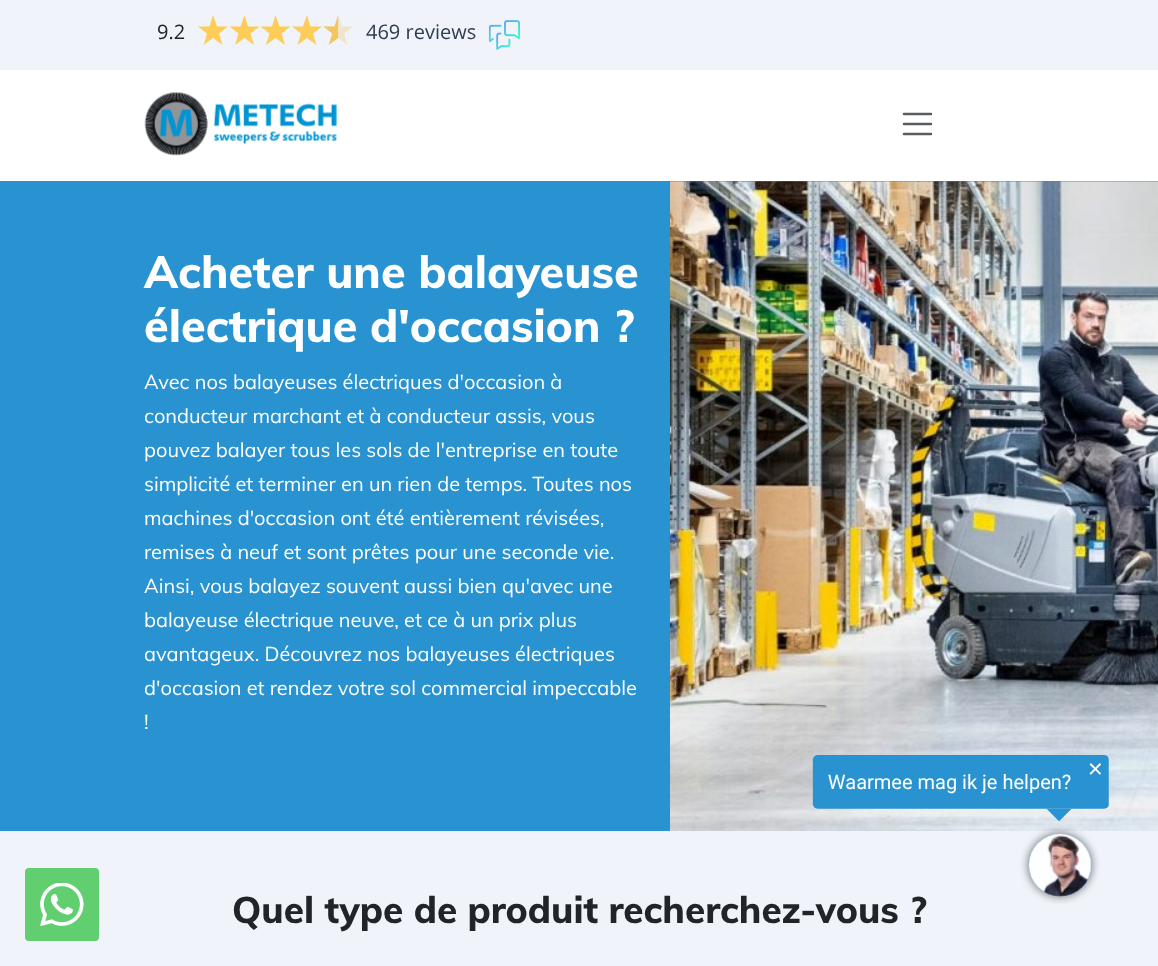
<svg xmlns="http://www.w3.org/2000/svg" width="1158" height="966">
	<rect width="100%" height="100%" fill="#FFFFFF" />
	<rect x="0" y="0" width="1158" height="70" fill="#F0F3F9" />
	<text x="157" y="39" font-family="Open Sans" font-size="20" fill="#212529">9.2</text>
	<path d="M222.5 45L219 33.5L228 26.5H217L213 15L209.5 26.5H198L207 33.5L203.5 45L213 38ZM254 45L250.5 33.5L259.5 26.5H248L244.5 15L240.5 26.5H229.5L238.5 33.5L235 45L244.5 38Z" fill="#FECD58" />
	<path d="M285 45L281.5 33.5L290.5 26.5H279.5L275.5 15L272 26.5H260.5L269.5 33.5L266 45L275.5 38ZM316.5 45L313 33.5L322 26.5H310.5L307 15L303 26.5H292L301 33.5L297.5 45L307 38Z" fill="#FECD58" />
	<image x="323" y="15" width="30" height="30" href="assets/img1.png" />
	<text x="366" y="39" font-family="Open Sans" font-size="20" fill="#303C50">469 reviews</text>
	<image x="489" y="20" width="31" height="30" href="assets/img2.png" />
	<image x="144" y="92" width="193" height="64" href="assets/img3.png" />
	<path d="M904 114H931M904 124H931M904 134H931" fill="none" stroke="#595C5F" stroke-width="2.5" stroke-linecap="round" />
	<rect x="0" y="831" width="1158" height="135" fill="#F0F3F9" />
	<rect x="25" y="868" width="74" height="73" rx="4" fill="#61CE70" />
	<image x="40" y="883" width="44" height="43" href="assets/img4.png" />
	<rect x="0" y="181" width="1158" height="650" fill="#2893D0" />
	<g font-family="Muli" font-size="44.9" font-weight="800" fill="#FFFFFF">
		<text x="144" y="288">Acheter une balayeuse</text>
		<text x="144" y="342">électrique d'occasion ?</text>
	</g>
	<g font-family="Muli" font-size="20" fill="#FFFFFF">
		<text x="144" y="389">Avec nos balayeuses électriques d'occasion à</text>
		<text x="144" y="423">conducteur marchant et à conducteur assis, vous</text>
		<text x="144" y="457">pouvez balayer tous les sols de l'entreprise en toute</text>
		<text x="144" y="491">simplicité et terminer en un rien de temps. Toutes nos</text>
		<text x="144" y="525">machines d'occasion ont été entièrement révisées,</text>
		<text x="144" y="559">remises à neuf et sont prêtes pour une seconde vie.</text>
		<text x="144" y="593">Ainsi, vous balayez souvent aussi bien qu'avec une</text>
		<text x="144" y="627">balayeuse électrique neuve, et ce à un prix plus</text>
		<text x="144" y="661">avantageux. Découvrez nos balayeuses électriques</text>
		<text x="144" y="695">d'occasion et rendez votre sol commercial impeccable</text>
		<text x="144" y="729">!</text>
	</g>
	<image x="670" y="181" width="488" height="650" href="assets/img5.png" />
	<text x="232" y="923" font-family="Muli" font-size="36.9" font-weight="800" fill="#212529">Quel type de produit recherchez-vous ?</text>
	<image x="812" y="755" width="297" height="149" href="assets/img6.png" />
</svg>
